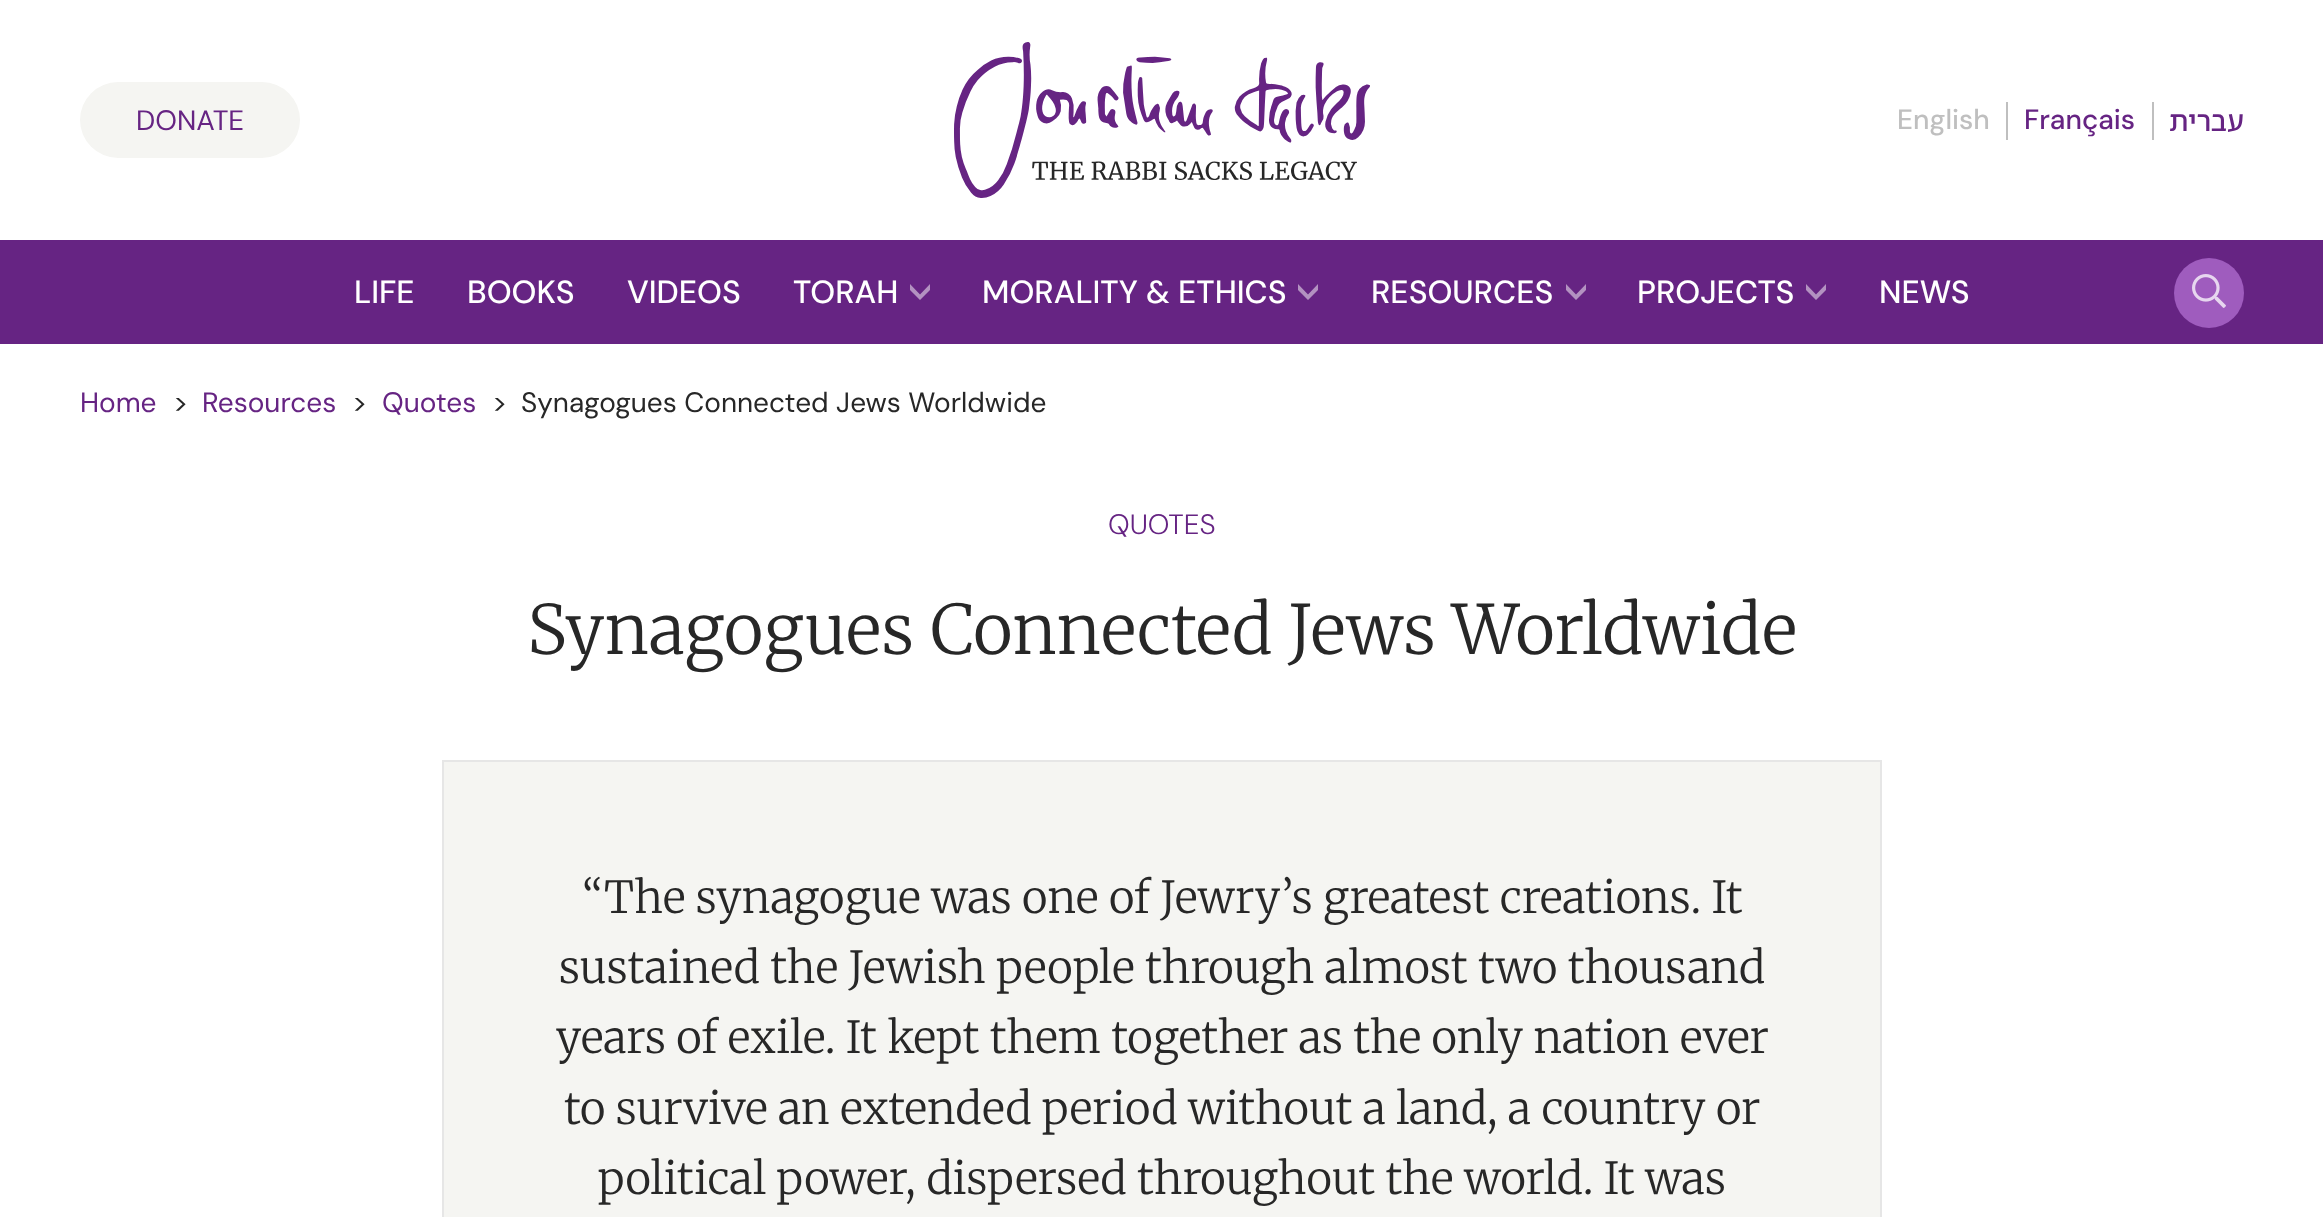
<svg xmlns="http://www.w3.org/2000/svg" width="2323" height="1217">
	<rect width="100%" height="100%" fill="#FFFFFF" />
	<rect x="80" y="82" width="220" height="76" rx="38" fill="#F5F5F2" />
	<text x="136" y="130" font-family="DM Sans" font-size="28" fill="#662483">DONATE</text>
	<image x="954" y="42" width="416" height="156" href="assets/img1.png" />
	<rect x="2006" y="102" width="2" height="38" fill="#BFBFBF" />
	<text x="1897" y="129" font-family="DM Sans" font-size="28" font-weight="500" fill="#BFBFBF">English</text>
	<rect x="2152" y="102" width="2" height="38" fill="#BFBFBF" />
	<text x="2024" y="129" font-family="DM Sans" font-size="28" font-weight="500" fill="#662483">Français</text>
	<text x="2244" y="131" font-family="Noto Sans Hebrew" font-size="28" font-weight="500" direction="rtl" fill="#662483">עברית</text>
	<rect x="0" y="240" width="2323" height="104" fill="#662483" />
	<g font-family="'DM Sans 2'" font-size="32" font-weight="500" fill="#FFFFFF">
		<text x="354" y="303">LIFE</text>
		<text x="467" y="303">BOOKS</text>
		<text x="627" y="303">VIDEOS</text>
		<text x="793" y="303">TORAH</text>
	</g>
	<path d="M910 284L920 294.5L930 284V290L920 300L910 290Z" fill="#B392C1" />
	<text x="982" y="303" font-family="'DM Sans 2'" font-size="32" font-weight="500" fill="#FFFFFF">MORALITY &amp; ETHICS</text>
	<path d="M1298 284L1308 294.5L1318 284V290L1308 300L1298 290Z" fill="#B392C1" />
	<text x="1371" y="303" font-family="'DM Sans 2'" font-size="32" font-weight="500" fill="#FFFFFF">RESOURCES</text>
	<path d="M1566 284L1576 294.5L1586 284V290L1576 300L1566 290Z" fill="#B392C1" />
	<text x="1637" y="303" font-family="'DM Sans 2'" font-size="32" font-weight="500" fill="#FFFFFF">PROJECTS</text>
	<path d="M1806 284L1816 294.5L1826 284V290L1816 300L1806 290Z" fill="#B392C1" />
	<text x="1879" y="303" font-family="'DM Sans 2'" font-size="32" font-weight="500" fill="#FFFFFF">NEWS</text>
	<circle cx="2209" cy="293" r="35" fill="#9F5CBE" />
	<image x="2192" y="274" width="34" height="34" href="assets/img2.png" />
	<text x="80" y="412" font-family="DM Sans" font-size="28" fill="#662483">Home</text>
	<text x="173" y="412" font-family="DM Sans" font-size="28" fill="#272727">&gt;</text>
	<text x="202" y="412" font-family="DM Sans" font-size="28" fill="#662483">Resources</text>
	<text x="352" y="412" font-family="DM Sans" font-size="28" fill="#272727">&gt;</text>
	<text x="382" y="412" font-family="DM Sans" font-size="28" fill="#662483">Quotes</text>
	<g font-family="DM Sans" font-size="28" fill="#272727">
		<text x="492" y="412">&gt;</text>
		<text x="521" y="412">Synagogues Connected Jews Worldwide</text>
	</g>
	<text x="1108" y="534" font-family="DM Sans" font-size="28" font-weight="300" fill="#662483">QUOTES</text>
	<text x="527" y="654" font-family="Merriweather" font-size="68" font-weight="300" fill="#272727">Synagogues Connected Jews Worldwide</text>
	<rect x="443" y="761" width="1438" height="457" fill="#F5F5F2" stroke="#E6E6E6" stroke-width="2" />
	<g font-family="Merriweather" font-size="44" font-weight="300" fill="#272727">
		<text x="582" y="913">“The synagogue was one of Jewry’s greatest creations. It</text>
		<text x="559" y="983">sustained the Jewish people through almost two thousand</text>
		<text x="556" y="1053">years of exile. It kept them together as the only nation ever</text>
		<text x="564" y="1124">to survive an extended period without a land, a country or</text>
		<text x="598" y="1194">political power, dispersed throughout the world. It was</text>
	</g>
</svg>
